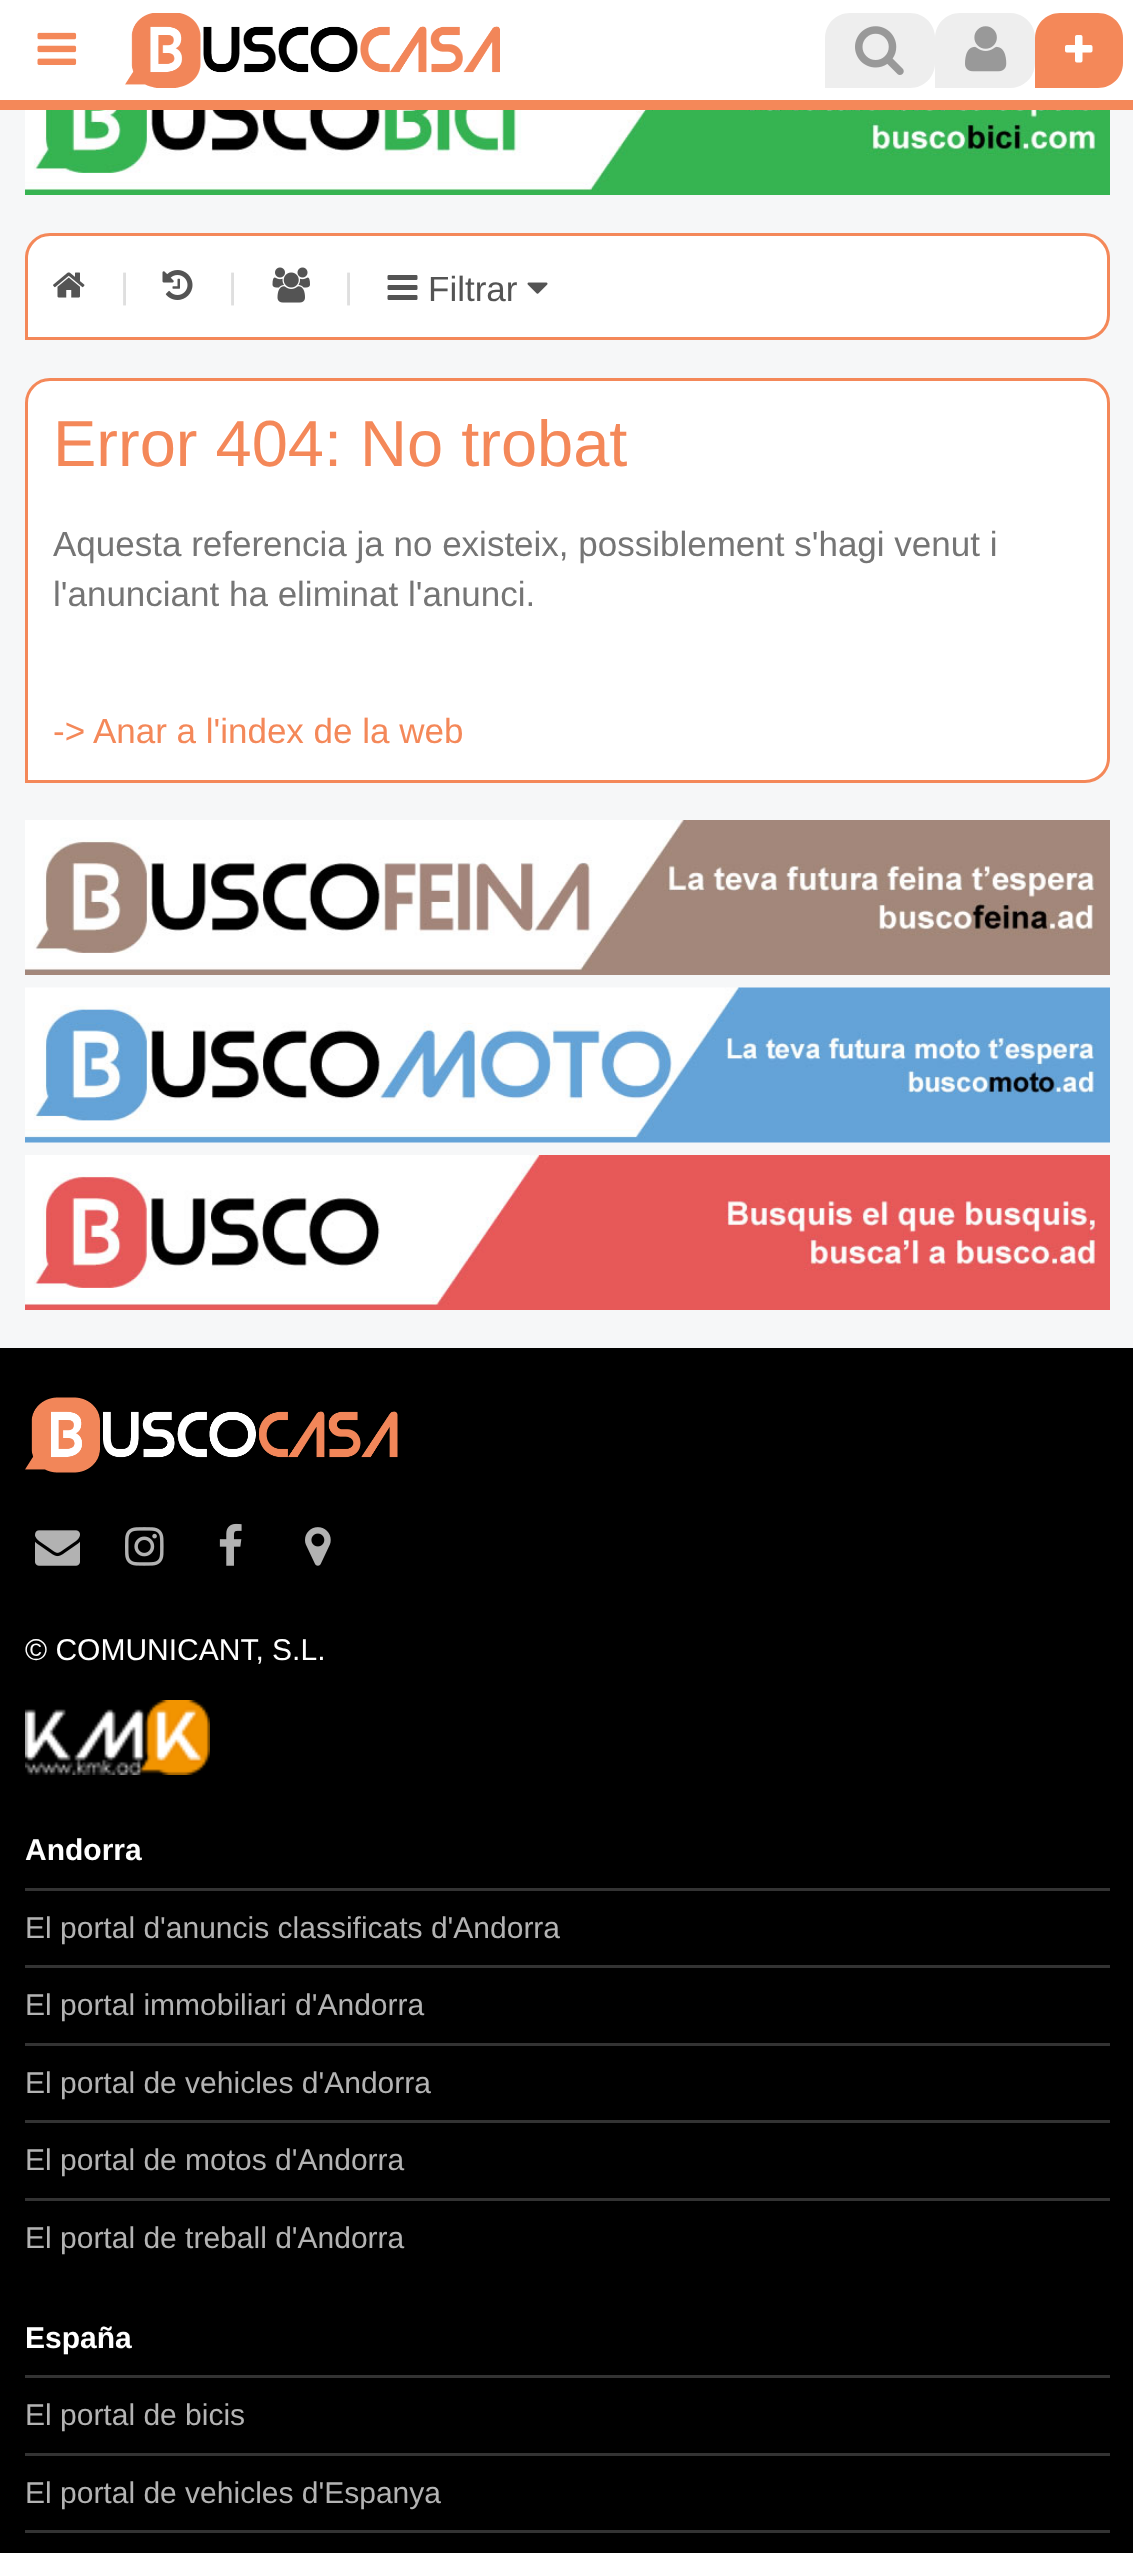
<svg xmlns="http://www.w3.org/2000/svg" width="1133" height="2553">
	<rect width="100%" height="100%" fill="#F6F7F8" />
	<rect x="0" y="100" width="1133" height="10" fill="#F48859" />
	<rect x="0" y="0" width="1133" height="100" fill="#FFFFFF" />
	<image x="37" y="32" width="40" height="33" href="assets/img1.png" />
	<image x="125" y="13" width="375" height="75" href="assets/img2.png" />
	<path d="M850 13H910C924 13 935 24 935 38V63C935 77 924 88 910 88H825V38C825 24 836 13 850 13Z" fill="#EEEEEE" />
	<image x="855" y="26" width="49" height="49" href="assets/img3.png" />
	<path d="M960 13H1010C1024 13 1035 24 1035 38V63C1035 77 1024 88 1010 88H935V38C935 24 946 13 960 13Z" fill="#EEEEEE" />
	<image x="965" y="26" width="42" height="46" href="assets/img4.png" />
	<path d="M1060 13H1098C1112 13 1123 24 1123 38V63C1123 77 1112 88 1098 88H1035V38C1035 24 1046 13 1060 13Z" fill="#F48859" />
	<image x="1065" y="35" width="28" height="28" href="assets/img5.png" />
	<image x="25" y="110" width="1085" height="85" href="assets/img6.png" />
	<path d="M50 234.5H1085C1098 234.5 1108.5 245 1108.5 258V315C1108.5 328 1098 338.5 1085 338.5H26.5V258C26.5 245 37 234.5 50 234.5Z" fill="#FFFFFF" stroke="#F48859" stroke-width="3" />
	<image x="53" y="272" width="32" height="26" href="assets/img7.png" />
	<text x="120" y="298" font-family="Liberation Sans" font-size="35" fill="#DFDFDF">|</text>
	<image x="162" y="270" width="31" height="30" href="assets/img8.png" />
	<text x="228" y="298" font-family="Liberation Sans" font-size="35" fill="#DFDFDF">|</text>
	<image x="272" y="267" width="38" height="36" href="assets/img9.png" />
	<text x="344" y="298" font-family="Liberation Sans" font-size="35" fill="#DFDFDF">|</text>
	<image x="387" y="275" width="31" height="25" href="assets/img10.png" />
	<text x="428" y="301" font-family="Liberation Sans" font-size="35" fill="#545454">Filtrar</text>
	<image x="527" y="282" width="21" height="12" href="assets/img11.png" />
	<path d="M50 379.5H1085C1098 379.5 1108.5 390 1108.5 403V758C1108.5 771 1098 781.5 1085 781.5H26.5V403C26.5 390 37 379.5 50 379.5Z" fill="#FFFFFF" stroke="#F48859" stroke-width="3" />
	<text x="53" y="466" font-family="Liberation Sans" font-size="65" fill="#F48859">Error 404: No trobat</text>
	<g font-family="Liberation Sans" font-size="35" fill="#757575">
		<text x="53" y="556">Aquesta referencia ja no existeix, possiblement s'hagi venut i</text>
		<text x="53" y="606">l'anunciant ha eliminat l'anunci.</text>
	</g>
	<text x="53" y="743" font-family="Liberation Sans" font-size="35" fill="#F48859">-&gt; Anar a l'index de la web</text>
	<image x="25" y="820" width="1085" height="155" href="assets/img12.png" />
	<image x="25" y="987" width="1085" height="156" href="assets/img13.png" />
	<image x="25" y="1155" width="1085" height="155" href="assets/img14.png" />
	<rect x="0" y="1348" width="1133" height="1205" fill="#000000" />
	<image x="25" y="1397" width="373" height="76" href="assets/img15.png" />
	<image x="35" y="1530" width="45" height="36" href="assets/img16.png" />
	<image x="125" y="1527" width="39" height="39" href="assets/img17.png" />
	<image x="219" y="1523" width="23" height="43" href="assets/img18.png" />
	<image x="305" y="1527" width="26" height="39" href="assets/img19.png" />
	<text x="25" y="1660" font-family="Liberation Sans" font-size="30" fill="#FFFFFF">© COMUNICANT, S.L.</text>
	<image x="25" y="1700" width="185" height="75" href="assets/img20.png" />
	<text x="25" y="1860" font-family="Liberation Sans" font-size="30" font-weight="700" fill="#FFFFFF">Andorra</text>
	<rect x="25" y="1888" width="1085" height="3" fill="#333333" />
	<text x="25" y="1938" font-family="Liberation Sans" font-size="30" fill="#B3B3B3">El portal d'anuncis classificats d'Andorra</text>
	<rect x="25" y="1965" width="1085" height="3" fill="#333333" />
	<text x="25" y="2015" font-family="Liberation Sans" font-size="30" fill="#B3B3B3">El portal immobiliari d'Andorra</text>
	<rect x="25" y="2043" width="1085" height="3" fill="#333333" />
	<text x="25" y="2093" font-family="Liberation Sans" font-size="30" fill="#B3B3B3">El portal de vehicles d'Andorra</text>
	<rect x="25" y="2120" width="1085" height="3" fill="#333333" />
	<text x="25" y="2170" font-family="Liberation Sans" font-size="30" fill="#B3B3B3">El portal de motos d'Andorra</text>
	<rect x="25" y="2198" width="1085" height="3" fill="#333333" />
	<text x="25" y="2248" font-family="Liberation Sans" font-size="30" fill="#B3B3B3">El portal de treball d'Andorra</text>
	<text x="25" y="2348" font-family="Liberation Sans" font-size="30" font-weight="700" fill="#FFFFFF">España</text>
	<rect x="25" y="2375" width="1085" height="3" fill="#333333" />
	<text x="25" y="2425" font-family="Liberation Sans" font-size="30" fill="#B3B3B3">El portal de bicis</text>
	<rect x="25" y="2453" width="1085" height="3" fill="#333333" />
	<text x="25" y="2503" font-family="Liberation Sans" font-size="30" fill="#B3B3B3">El portal de vehicles d'Espanya</text>
	<rect x="25" y="2530" width="1085" height="3" fill="#333333" />
</svg>
